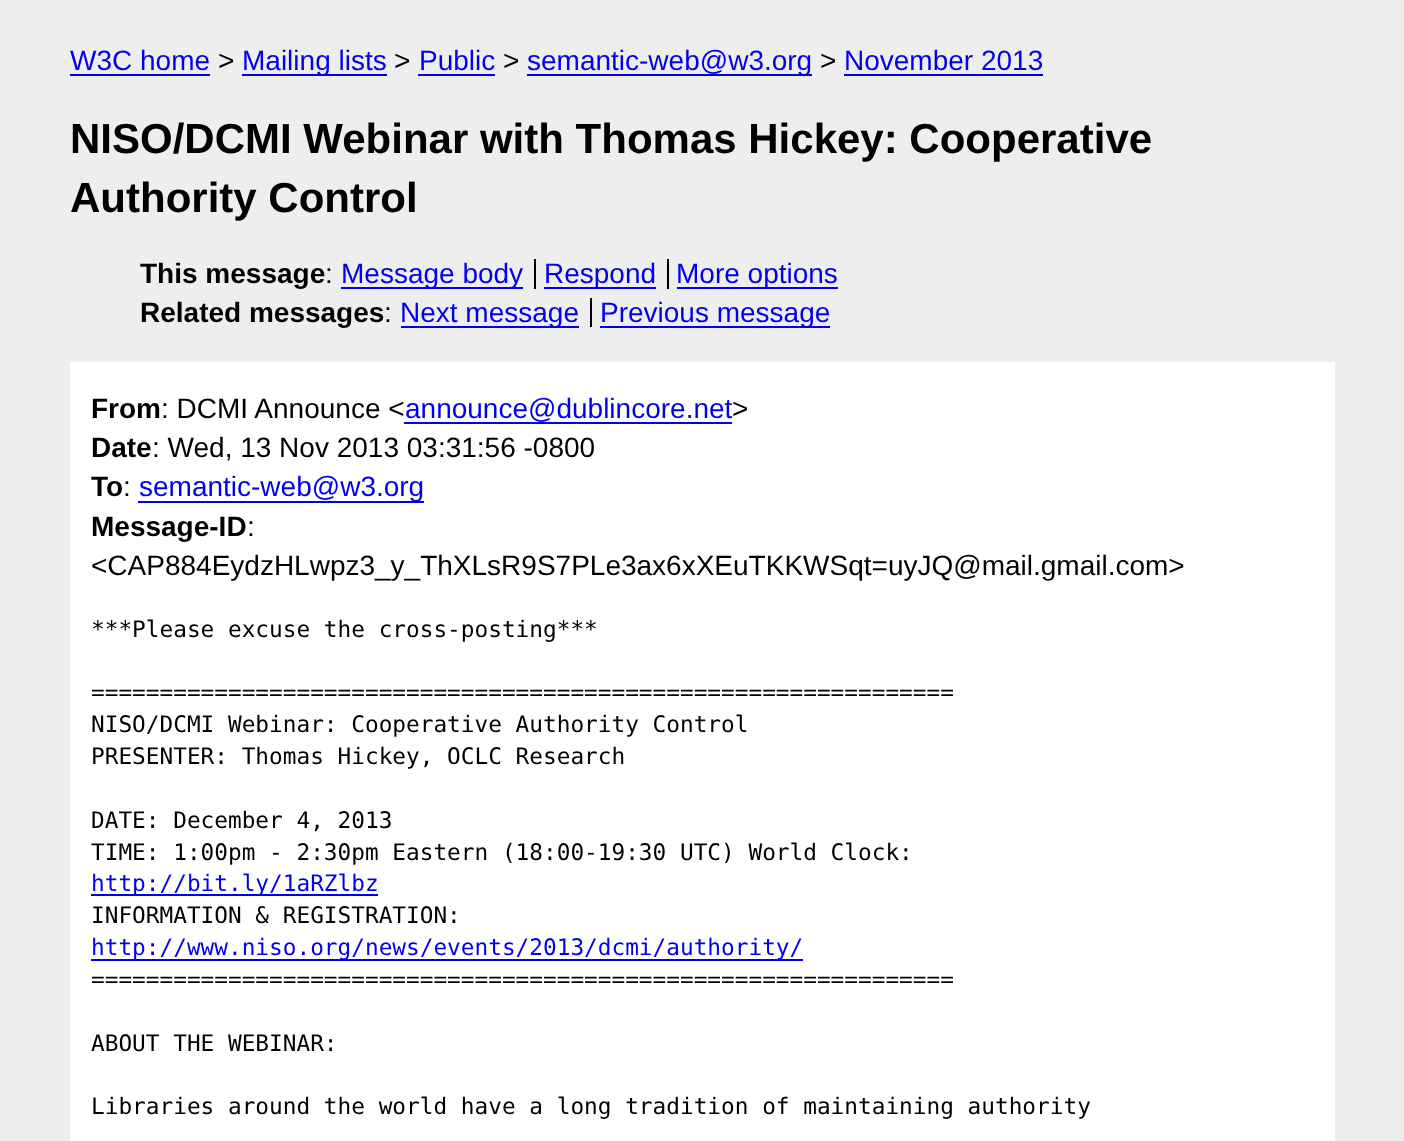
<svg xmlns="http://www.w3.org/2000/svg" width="1404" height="1141">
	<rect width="100%" height="100%" fill="#EEEEEE" />
	<text x="70" y="70" font-family="Liberation Sans" font-size="28" fill="#0000EE">W3C home</text>
	<rect x="70" y="74" width="140" height="2" fill="#0000EE" />
	<text x="218" y="70" font-family="Liberation Sans" font-size="28" fill="#000000">&gt;</text>
	<rect x="242" y="74" width="145" height="2" fill="#0000EE" />
	<text x="242" y="70" font-family="Liberation Sans" font-size="28" fill="#0000EE">Mailing lists</text>
	<text x="394" y="70" font-family="Liberation Sans" font-size="28" fill="#000000">&gt;</text>
	<text x="419" y="70" font-family="Liberation Sans" font-size="28" fill="#0000EE">Public</text>
	<rect x="418" y="74" width="77" height="2" fill="#0000EE" />
	<text x="503" y="70" font-family="Liberation Sans" font-size="28" fill="#000000">&gt;</text>
	<rect x="527" y="74" width="285" height="2" fill="#0000EE" />
	<text x="527" y="70" font-family="Liberation Sans" font-size="28" fill="#0000EE">semantic-web@w3.org</text>
	<text x="820" y="70" font-family="Liberation Sans" font-size="28" fill="#000000">&gt;</text>
	<text x="844" y="70" font-family="Liberation Sans" font-size="28" fill="#0000EE">November 2013</text>
	<rect x="844" y="74" width="199" height="2" fill="#0000EE" />
	<g font-family="Liberation Sans" font-size="42" font-weight="700" fill="#000000">
		<text x="70" y="153">NISO/DCMI Webinar with Thomas Hickey: Cooperative</text>
		<text x="70" y="212">Authority Control</text>
	</g>
	<text x="140" y="283" font-family="Liberation Sans" font-size="28" font-weight="700" fill="#000000">This message</text>
	<text x="325" y="283" font-family="Liberation Sans" font-size="28" fill="#000000">:</text>
	<rect x="341" y="287" width="182" height="2" fill="#0000EE" />
	<text x="341" y="283" font-family="Liberation Sans" font-size="28" fill="#0000EE">Message body</text>
	<rect x="544" y="287" width="112" height="2" fill="#0000EE" />
	<text x="544" y="283" font-family="Liberation Sans" font-size="28" fill="#0000EE">Respond</text>
	<rect x="534" y="259" width="2" height="30" fill="#000000" />
	<rect x="677" y="287" width="161" height="2" fill="#0000EE" />
	<text x="676" y="283" font-family="Liberation Sans" font-size="28" fill="#0000EE">More options</text>
	<rect x="667" y="259" width="2" height="30" fill="#000000" />
	<text x="140" y="322" font-family="Liberation Sans" font-size="28" font-weight="700" fill="#000000">Related messages</text>
	<text x="384" y="322" font-family="Liberation Sans" font-size="28" fill="#000000">:</text>
	<rect x="401" y="326" width="178" height="2" fill="#0000EE" />
	<text x="400" y="322" font-family="Liberation Sans" font-size="28" fill="#0000EE">Next message</text>
	<rect x="600" y="326" width="230" height="2" fill="#0000EE" />
	<text x="600" y="322" font-family="Liberation Sans" font-size="28" fill="#0000EE">Previous message</text>
	<rect x="590" y="298" width="2" height="29" fill="#000000" />
	<rect x="70" y="362" width="1265" height="779" fill="#FFFFFF" />
	<text x="91" y="418" font-family="Liberation Sans" font-size="28" font-weight="700" fill="#000000">From</text>
	<text x="161" y="418" font-family="Liberation Sans" font-size="28" fill="#000000">: DCMI Announce &lt;</text>
	<text x="405" y="418" font-family="Liberation Sans" font-size="28" fill="#0000EE">announce@dublincore.net</text>
	<rect x="404" y="422" width="328" height="2" fill="#0000EE" />
	<text x="732" y="418" font-family="Liberation Sans" font-size="28" fill="#000000">&gt;</text>
	<text x="91" y="457" font-family="Liberation Sans" font-size="28" font-weight="700" fill="#000000">Date</text>
	<text x="152" y="457" font-family="Liberation Sans" font-size="28" fill="#000000">: Wed, 13 Nov 2013 03:31:56 -0800</text>
	<text x="91" y="496" font-family="Liberation Sans" font-size="28" font-weight="700" fill="#000000">To</text>
	<text x="123" y="496" font-family="Liberation Sans" font-size="28" fill="#000000">:</text>
	<rect x="138" y="501" width="286" height="2" fill="#0000EE" />
	<text x="139" y="496" font-family="Liberation Sans" font-size="28" fill="#0000EE">semantic-web@w3.org</text>
	<text x="91" y="536" font-family="Liberation Sans" font-size="28" font-weight="700" fill="#000000">Message-ID</text>
	<g font-family="Liberation Sans" font-size="28" fill="#000000">
		<text x="247" y="536">:</text>
		<text x="91" y="575">&lt;CAP884EydzHLwpz3_y_ThXLsR9S7PLe3ax6xXEuTKKWSqt=uyJQ@mail.gmail.com&gt;</text>
	</g>
	<g font-family="DejaVu Sans Mono" font-size="22.75" fill="#000000">
		<text x="91" y="637">***Please excuse the cross-posting***</text>
		<text x="91" y="700">===============================================================</text>
		<text x="91" y="732">NISO/DCMI Webinar: Cooperative Authority Control</text>
		<text x="91" y="764">PRESENTER: Thomas Hickey, OCLC Research</text>
		<text x="91" y="828">DATE: December 4, 2013</text>
		<text x="91" y="860">TIME: 1:00pm - 2:30pm Eastern (18:00-19:30 UTC) World Clock:</text>
	</g>
	<rect x="91" y="894" width="287" height="2" fill="#0000EE" />
	<text x="91" y="891" font-family="DejaVu Sans Mono" font-size="22.75" fill="#0000EE">http://bit.ly/1aRZlbz</text>
	<text x="91" y="923" font-family="DejaVu Sans Mono" font-size="22.75" fill="#000000">INFORMATION &amp; REGISTRATION:</text>
	<rect x="91" y="959" width="712" height="2" fill="#0000EE" />
	<text x="91" y="955" font-family="DejaVu Sans Mono" font-size="22.75" fill="#0000EE">http://www.niso.org/news/events/2013/dcmi/authority/</text>
	<g font-family="DejaVu Sans Mono" font-size="22.75" fill="#000000">
		<text x="91" y="987">===============================================================</text>
		<text x="91" y="1051">ABOUT THE WEBINAR:</text>
		<text x="91" y="1114">Libraries around the world have a long tradition of maintaining authority</text>
	</g>
</svg>
